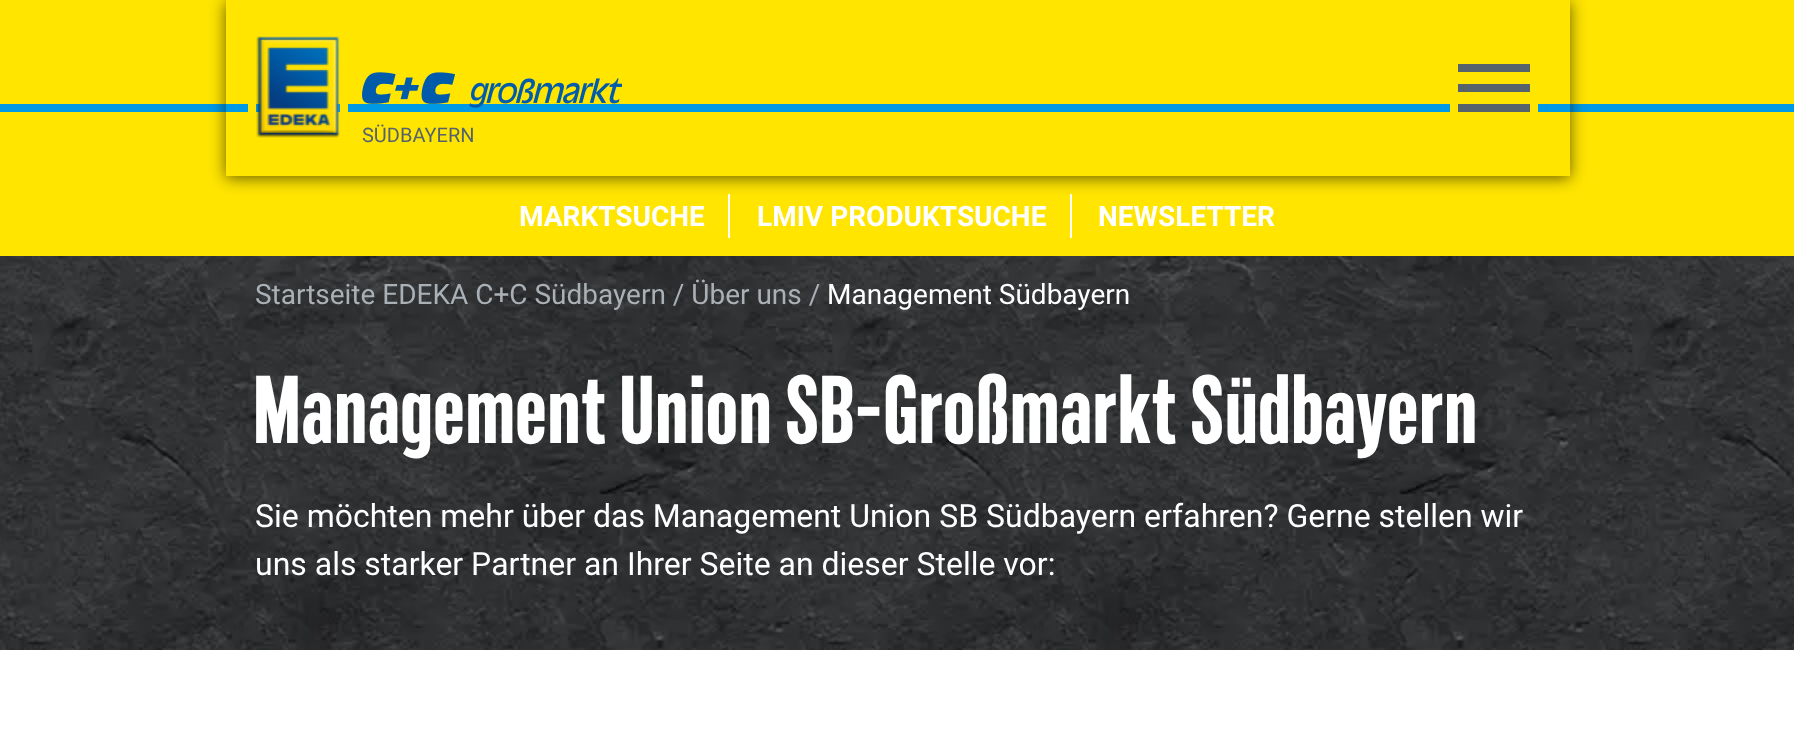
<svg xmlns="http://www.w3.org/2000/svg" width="1794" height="733">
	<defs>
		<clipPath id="clip1"><path d="M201 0H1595V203H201ZM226 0H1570V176H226Z" clip-rule="evenodd" /></clipPath>
	</defs>
	<rect width="100%" height="100%" fill="#FFFFFF" />
	<image x="0" y="256" width="1794" height="394" href="assets/img1.png" />
	<rect x="0" y="0" width="1794" height="256" fill="#FFE500" />
	<rect x="0" y="104" width="1794" height="8" fill="#0099E5" />
	<g clip-path="url(#clip1)">
		<rect x="226" y="2" width="1344" height="176" fill="#000000" fill-opacity="0.6" filter="blur(8px)" />
	</g>
	<rect x="1450" y="104" width="88" height="8" fill="#FFE500" />
	<rect x="1458" y="84" width="72" height="8" fill="#56636D" />
	<rect x="1458" y="64" width="72" height="8" fill="#56636D" />
	<rect x="1458" y="104" width="72" height="8" fill="#56636D" />
	<image x="256" y="36" width="84" height="102" href="assets/img2.png" />
	<rect x="252" y="32" width="92" height="112" fill="none" stroke="#FFE500" stroke-width="8" />
	<image x="362" y="72" width="260" height="36" href="assets/img3.png" />
	<text x="362" y="142" font-family="Roboto" font-size="20" fill="#56636D">SÜDBAYERN</text>
	<text x="519" y="226" font-family="Roboto" font-size="28" font-weight="700" fill="#FFFFFF">MARKTSUCHE</text>
	<rect x="728" y="194" width="2" height="44" fill="#FFFFFF" />
	<text x="757" y="226" font-family="Roboto" font-size="28" font-weight="700" fill="#FFFFFF">LMIV PRODUKTSUCHE</text>
	<rect x="1070" y="194" width="2" height="44" fill="#FFFFFF" />
	<text x="1098" y="226" font-family="Roboto" font-size="28" font-weight="700" fill="#FFFFFF">NEWSLETTER</text>
	<text x="255" y="304" font-family="Roboto" font-size="28" fill="#AAB1B6">Startseite EDEKA C+C Südbayern / Über uns /</text>
	<text x="827" y="304" font-family="Roboto" font-size="28" fill="#FFFFFF">Management Südbayern</text>
	<text x="253" y="443" font-family="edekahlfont" font-size="96" font-weight="700" fill="#FFFFFF">Management Union SB-Großmarkt Südbayern</text>
	<g font-family="Roboto" font-size="32" fill="#FFFFFF">
		<text x="255" y="527">Sie möchten mehr über das Management Union SB Südbayern erfahren? Gerne stellen wir</text>
		<text x="255" y="575">uns als starker Partner an Ihrer Seite an dieser Stelle vor:</text>
	</g>
</svg>
